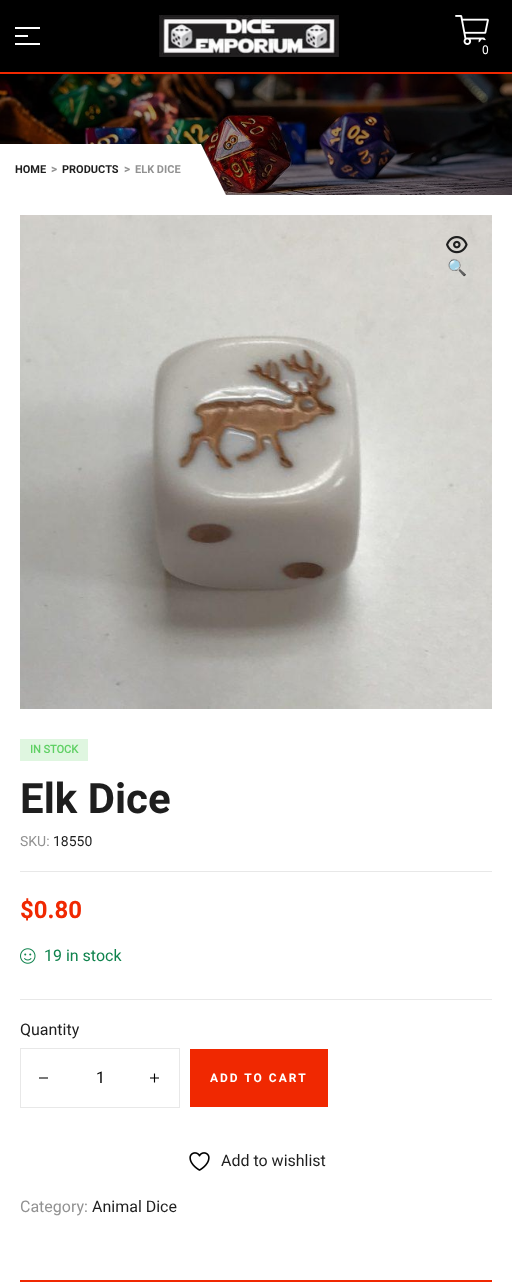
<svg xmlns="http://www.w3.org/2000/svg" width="512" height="1282">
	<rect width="100%" height="100%" fill="#FFFFFF" />
	<rect x="0" y="0" width="512" height="72" fill="#000000" />
	<rect x="0" y="72" width="512" height="2" fill="#F02801" />
	<rect x="15" y="27" width="25" height="2" fill="#FFFFFF" />
	<rect x="15" y="35" width="13" height="2" fill="#FFFFFF" />
	<rect x="15" y="43" width="25" height="2" fill="#FFFFFF" />
	<image x="159" y="15" width="180" height="42" href="assets/img1.png" />
	<image x="455" y="15" width="34" height="30" href="assets/img2.png" />
	<circle cx="485" cy="50" r="10" fill="#000000" />
	<text x="482" y="54" font-family="Roboto" font-size="12" fill="#FFFFFF">0</text>
	<image x="0" y="74" width="512" height="121" href="assets/img3.png" />
	<rect x="0" y="144" width="15" height="51" fill="#FFFFFF" />
	<path d="M15 144V195H226L201 144Z" fill="#FFFFFF" />
	<text x="15" y="173" font-family="Roboto" font-size="11" font-weight="700" fill="#1E1E1E">HOME</text>
	<text x="51" y="173" font-family="Roboto" font-size="12" font-weight="700" fill="#929292">&gt;</text>
	<text x="62" y="173" font-family="Roboto" font-size="11" font-weight="700" fill="#1E1E1E">PRODUCTS</text>
	<text x="124" y="173" font-family="Roboto" font-size="12" font-weight="700" fill="#929292">&gt;</text>
	<text x="135" y="173" font-family="Roboto" font-size="11" font-weight="700" fill="#929292">ELK DICE</text>
	<image x="20" y="215" width="472" height="494" href="assets/img4.png" />
	<image x="446" y="236" width="22" height="18" href="assets/img5.png" />
	<text x="447" y="273" font-family="Noto Color Emoji" font-size="16" fill="#1E1E1E">🔍</text>
	<rect x="20" y="739" width="68" height="22" fill="#DFF6E0" />
	<text x="30" y="753" font-family="'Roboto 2'" font-size="11" font-weight="700" fill="#5FD064">IN STOCK</text>
	<text x="20" y="813" font-family="Roboto" font-size="42" font-weight="700" fill="#1E1E1E">Elk Dice</text>
	<rect x="20" y="871" width="472" height="1" fill="#E8E8E8" />
	<text x="20" y="846" font-family="Roboto" font-size="14" fill="#929292">SKU:</text>
	<text x="53" y="846" font-family="Roboto" font-size="14" fill="#1E1E1E">18550</text>
	<text x="20" y="918" font-family="Roboto" font-size="24" font-weight="700" fill="#F02801">$0.80</text>
	<image x="20" y="948" width="16" height="16" href="assets/img6.png" />
	<text x="44" y="961" font-family="Roboto" font-size="16" fill="#0F834D">19 in stock</text>
	<rect x="20" y="999" width="472" height="1" fill="#E8E8E8" />
	<text x="20" y="1035" font-family="Roboto" font-size="16" fill="#1E1E1E">Quantity</text>
	<rect x="20.5" y="1048.5" width="159" height="59" fill="none" stroke="#E8E8E8" />
	<rect x="39" y="1077" width="9" height="2" fill="#787878" />
	<text x="96" y="1083" font-family="Roboto" font-size="16" fill="#000000">1</text>
	<image x="150" y="1073" width="9" height="10" href="assets/img7.png" />
	<rect x="190" y="1049" width="138" height="58" fill="#F02801" />
	<text x="210" y="1082" font-family="Roboto" font-size="12" font-weight="700" letter-spacing="2" fill="#FFFFFF">ADD TO CART</text>
	<image x="189" y="1152" width="21" height="19" href="assets/img8.png" />
	<text x="221" y="1166" font-family="Roboto" font-size="16" fill="#1E1E1E">Add to wishlist</text>
	<text x="20" y="1212" font-family="Roboto" font-size="16" fill="#929292">Category:</text>
	<text x="92" y="1212" font-family="Roboto" font-size="16" fill="#1E1E1E">Animal Dice</text>
	<rect x="20" y="1280" width="472" height="2" fill="#F02801" />
</svg>
